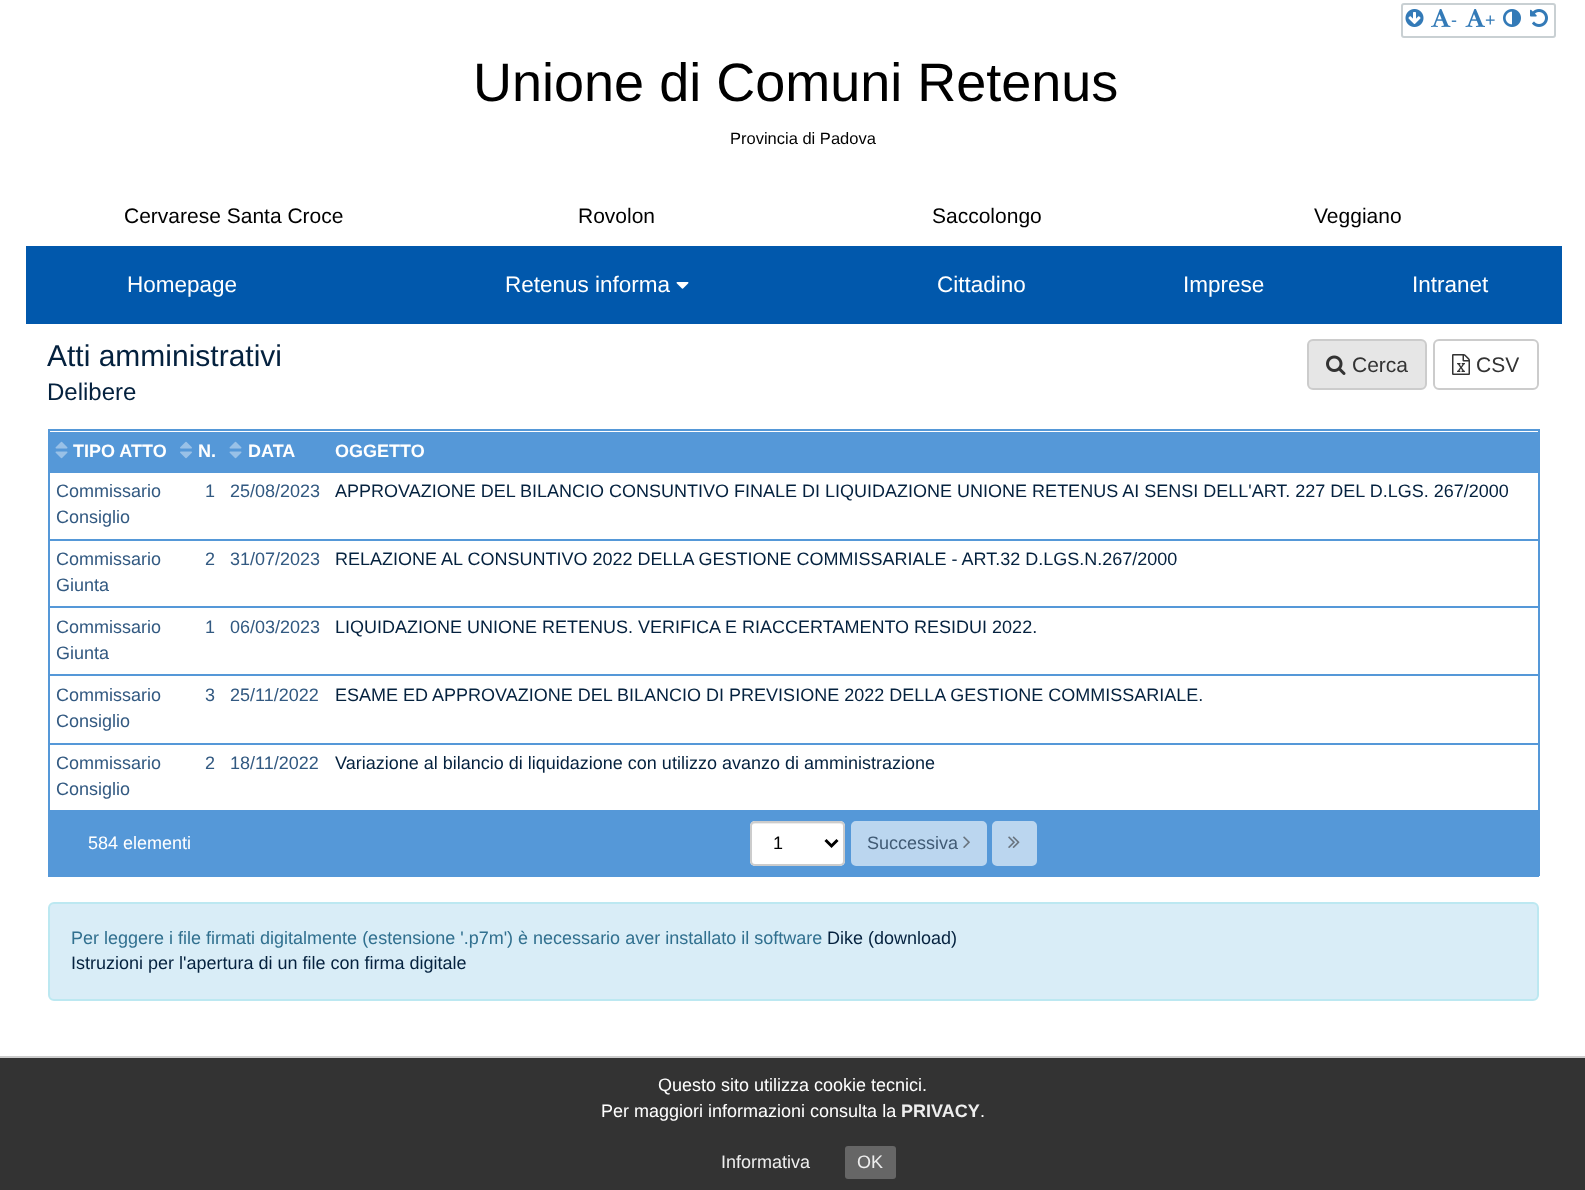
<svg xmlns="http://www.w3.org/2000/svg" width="1585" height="1190">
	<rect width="100%" height="100%" fill="#FFFFFF" />
	<rect x="1402" y="4" width="153" height="33" rx="2" fill="none" stroke="#C9D0D3" stroke-width="2" />
	<image x="1405" y="9" width="19" height="18" href="assets/img1.png" />
	<image x="1431" y="9" width="20" height="18" href="assets/img2.png" />
	<text x="1451" y="26" font-family="Liberation Sans" font-size="18" fill="#337AB7">-</text>
	<image x="1465" y="9" width="20" height="18" href="assets/img3.png" />
	<text x="1485" y="26" font-family="Liberation Sans" font-size="18" fill="#337AB7">+</text>
	<image x="1503" y="9" width="18" height="18" href="assets/img4.png" />
	<image x="1530" y="9" width="18" height="18" href="assets/img5.png" />
	<text x="473" y="101" font-family="Liberation Sans" font-size="54" fill="#000000">Unione di Comuni Retenus</text>
	<text x="730" y="144" font-family="Liberation Sans" font-size="16.5" fill="#000000">Provincia di Padova</text>
	<g font-family="Liberation Sans" font-size="21" fill="#000000">
		<text x="124" y="223">Cervarese Santa Croce</text>
		<text x="578" y="223">Rovolon</text>
		<text x="932" y="223">Saccolongo</text>
		<text x="1314" y="223">Veggiano</text>
	</g>
	<rect x="26" y="246" width="1536" height="77" fill="#0158AC" />
	<rect x="26" y="323" width="1536" height="1" fill="#0158AC" />
	<g font-family="Liberation Sans" font-size="22.5" fill="#FFFFFF">
		<text x="127" y="292">Homepage</text>
		<text x="505" y="292">Retenus informa</text>
	</g>
	<image x="676" y="282" width="13" height="7" href="assets/img6.png" />
	<g font-family="Liberation Sans" font-size="22.5" fill="#FFFFFF">
		<text x="937" y="292">Cittadino</text>
		<text x="1183" y="292">Imprese</text>
		<text x="1412" y="292">Intranet</text>
	</g>
	<text x="47" y="366" font-family="Liberation Sans" font-size="30" fill="#04213E">Atti amministrativi</text>
	<text x="47" y="400" font-family="Liberation Sans" font-size="24" fill="#04213E">Delibere</text>
	<rect x="1308" y="340" width="118" height="49" rx="5" fill="#E6E6E6" stroke="#CCCCCC" stroke-width="2" />
	<image x="1326" y="355" width="20" height="20" href="assets/img7.png" />
	<text x="1352" y="372" font-family="Liberation Sans" font-size="21" fill="#333333">Cerca</text>
	<rect x="1434" y="340" width="104" height="49" rx="5" fill="none" stroke="#CCCCCC" stroke-width="2" />
	<image x="1452" y="354" width="18" height="21" href="assets/img8.png" />
	<text x="1476" y="372" font-family="Liberation Sans" font-size="21" fill="#333333">CSV</text>
	<rect x="48" y="429" width="1491" height="2" fill="#5598D8" />
	<rect x="1538" y="429" width="2" height="381" fill="#5598D8" />
	<rect x="48" y="875" width="1491" height="2" fill="#5598D8" />
	<rect x="48" y="429" width="2" height="447" fill="#5598D8" />
	<rect x="50" y="432" width="1488" height="39" fill="#5598D8" />
	<image x="55" y="441" width="13" height="18" href="assets/img9.png" />
	<text x="73" y="457" font-family="Liberation Sans" font-size="18" font-weight="700" fill="#FFFFFF">TIPO ATTO</text>
	<image x="180" y="441" width="12" height="18" href="assets/img10.png" />
	<text x="198" y="457" font-family="Liberation Sans" font-size="18" font-weight="700" fill="#FFFFFF">N.</text>
	<image x="229" y="441" width="13" height="18" href="assets/img9.png" />
	<text x="248" y="457" font-family="Liberation Sans" font-size="18" font-weight="700" fill="#FFFFFF">DATA</text>
	<rect x="48" y="471" width="1491" height="2" fill="#5598D8" />
	<text x="335" y="457" font-family="Liberation Sans" font-size="18" font-weight="700" fill="#FFFFFF">OGGETTO</text>
	<g font-family="Liberation Sans" font-size="18" fill="#325981">
		<text x="56" y="497">Commissario</text>
		<text x="56" y="523">Consiglio</text>
		<text x="205" y="497">1</text>
		<text x="230" y="497">25/08/2023</text>
	</g>
	<rect x="48" y="539" width="1491" height="2" fill="#5598D8" />
	<text x="335" y="497" font-family="Liberation Sans" font-size="18" fill="#04213E">APPROVAZIONE DEL BILANCIO CONSUNTIVO FINALE DI LIQUIDAZIONE UNIONE RETENUS AI SENSI DELL'ART. 227 DEL D.LGS. 267/2000</text>
	<g font-family="Liberation Sans" font-size="18" fill="#325981">
		<text x="56" y="565">Commissario</text>
		<text x="56" y="591">Giunta</text>
		<text x="205" y="565">2</text>
		<text x="230" y="565">31/07/2023</text>
	</g>
	<rect x="48" y="606" width="1491" height="2" fill="#5598D8" />
	<text x="335" y="565" font-family="Liberation Sans" font-size="18" fill="#04213E">RELAZIONE AL CONSUNTIVO 2022 DELLA GESTIONE COMMISSARIALE - ART.32 D.LGS.N.267/2000</text>
	<g font-family="Liberation Sans" font-size="18" fill="#325981">
		<text x="56" y="633">Commissario</text>
		<text x="56" y="659">Giunta</text>
		<text x="205" y="633">1</text>
		<text x="230" y="633">06/03/2023</text>
	</g>
	<rect x="48" y="674" width="1491" height="2" fill="#5598D8" />
	<text x="335" y="633" font-family="Liberation Sans" font-size="18" fill="#04213E">LIQUIDAZIONE UNIONE RETENUS. VERIFICA E RIACCERTAMENTO RESIDUI 2022.</text>
	<g font-family="Liberation Sans" font-size="18" fill="#325981">
		<text x="56" y="701">Commissario</text>
		<text x="56" y="727">Consiglio</text>
		<text x="205" y="701">3</text>
		<text x="230" y="701">25/11/2022</text>
	</g>
	<rect x="48" y="743" width="1491" height="2" fill="#5598D8" />
	<text x="335" y="701" font-family="Liberation Sans" font-size="18" fill="#04213E">ESAME ED APPROVAZIONE DEL BILANCIO DI PREVISIONE 2022 DELLA GESTIONE COMMISSARIALE.</text>
	<g font-family="Liberation Sans" font-size="18" fill="#325981">
		<text x="56" y="769">Commissario</text>
		<text x="56" y="795">Consiglio</text>
		<text x="205" y="769">2</text>
		<text x="230" y="769">18/11/2022</text>
	</g>
	<rect x="1538" y="810" width="2" height="66" fill="#5598D8" />
	<rect x="48" y="810" width="1491" height="2" fill="#5598D8" />
	<text x="335" y="769" font-family="Liberation Sans" font-size="18" fill="#04213E">Variazione al bilancio di liquidazione con utilizzo avanzo di amministrazione</text>
	<rect x="50" y="812" width="1488" height="63" fill="#5598D8" />
	<text x="88" y="849" font-family="Liberation Sans" font-size="18" fill="#FFFFFF">584 elementi</text>
	<rect x="750" y="821" width="95" height="45" rx="5" fill="#FFFFFF" />
	<path d="M754 824H840C842 824 843 825 843 826C843 818 829 822 826 822H769C766 822 752 818 752 826C752 825 753 824 754 824Z" fill="#ECECEC" />
	<rect x="751" y="822" width="93" height="43" rx="4" fill="none" stroke="#CCCCCC" stroke-width="2" />
	<path d="M825.5 840L831.5 846L837.5 840" fill="none" stroke="#000000" stroke-width="3" />
	<text x="773" y="849" font-family="Liberation Sans" font-size="18" fill="#000000">1</text>
	<rect x="852" y="822" width="134" height="43" rx="4" fill="#BBD6EF" stroke="#BBD6EF" stroke-width="2" />
	<text x="867" y="849" font-family="Liberation Sans" font-size="18" fill="#415B75">Successiva</text>
	<image x="963" y="836" width="7" height="12" href="assets/img11.png" />
	<rect x="993" y="822" width="43" height="43" rx="4" fill="#BBD6EF" stroke="#BBD6EF" stroke-width="2" />
	<image x="1008" y="836" width="12" height="12" href="assets/img12.png" />
	<rect x="49" y="903" width="1489" height="97" rx="5" fill="#D9EDF7" stroke="#BCE8F1" stroke-width="2" />
	<text x="71" y="944" font-family="Liberation Sans" font-size="18" fill="#31708F">Per leggere i file firmati digitalmente (estensione '.p7m') è necessario aver installato il software</text>
	<g font-family="Liberation Sans" font-size="18" fill="#04213E">
		<text x="827" y="944">Dike (download)</text>
		<text x="71" y="969">Istruzioni per l'apertura di un file con firma digitale</text>
	</g>
	<rect x="0" y="1058" width="1585" height="132" fill="#333333" />
	<rect x="0" y="1056" width="1585" height="2" fill="#CCCCCC" />
	<g font-family="Liberation Sans" font-size="18" fill="#FFFFFF">
		<text x="658" y="1091">Questo sito utilizza cookie tecnici.</text>
		<text x="601" y="1117">Per maggiori informazioni consulta la</text>
	</g>
	<text x="901" y="1117" font-family="Liberation Sans" font-size="18" font-weight="700" fill="#EEEEEE">PRIVACY</text>
	<text x="980" y="1117" font-family="Liberation Sans" font-size="18" fill="#FFFFFF">.</text>
	<text x="721" y="1168" font-family="Liberation Sans" font-size="18" fill="#EEEEEE">Informativa</text>
	<rect x="845" y="1146" width="51" height="33" rx="3" fill="#666666" />
	<text x="857" y="1168" font-family="Liberation Sans" font-size="18" fill="#EEEEEE">OK</text>
</svg>
